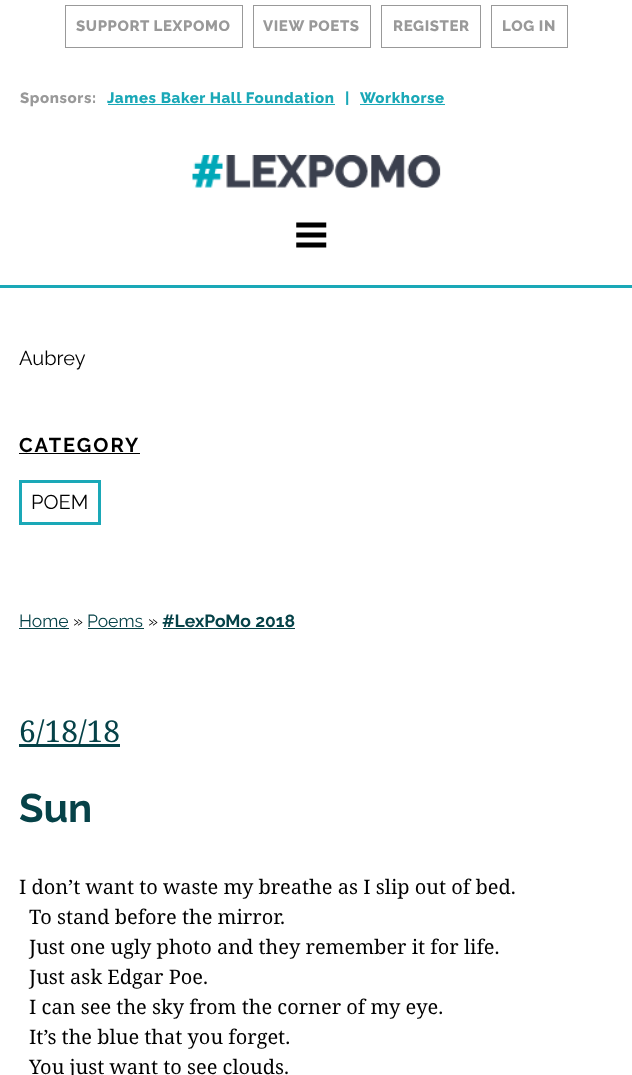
<svg xmlns="http://www.w3.org/2000/svg" width="632" height="1075">
	<rect width="100%" height="100%" fill="#FFFFFF" />
	<rect x="65.5" y="5.5" width="177" height="42" fill="none" stroke="#999999" />
	<text x="76" y="31" font-family="Raleway" font-size="15" font-weight="800" letter-spacing="0.6" fill="#999999">SUPPORT LEXPOMO</text>
	<rect x="253.5" y="5.5" width="117" height="42" fill="none" stroke="#999999" />
	<text x="263" y="31" font-family="Raleway" font-size="15" font-weight="800" letter-spacing="0.6" fill="#999999">VIEW POETS</text>
	<rect x="381.5" y="5.5" width="99" height="42" fill="none" stroke="#999999" />
	<text x="393" y="31" font-family="Raleway" font-size="15" font-weight="800" letter-spacing="0.6" fill="#999999">REGISTER</text>
	<rect x="491.5" y="5.5" width="76" height="42" fill="none" stroke="#999999" />
	<g font-family="Raleway" font-size="15" font-weight="800" letter-spacing="0.6" fill="#999999">
		<text x="502" y="31">LOG IN</text>
		<text x="20" y="103">Sponsors:</text>
	</g>
	<text x="107" y="103" font-family="Raleway" font-size="15" font-weight="800" letter-spacing="0.6" fill="#1AA8B7">James Baker Hall Foundation</text>
	<rect x="108" y="104" width="227" height="1" fill="#1AA8B7" />
	<g font-family="Raleway" font-size="15" font-weight="800" letter-spacing="0.6" fill="#1AA8B7">
		<text x="345" y="103">|</text>
		<text x="360" y="103">Workhorse</text>
	</g>
	<rect x="360" y="104" width="85" height="1" fill="#1AA8B7" />
	<image x="192" y="155" width="249" height="33" href="assets/img1.png" />
	<image x="296" y="222" width="31" height="26" href="assets/img2.png" />
	<rect x="0" y="285" width="632" height="3" fill="#1AA8B7" />
	<text x="19" y="365" font-family="Raleway" font-size="20" fill="#000000">Aubrey</text>
	<text x="19" y="452" font-family="Raleway" font-size="20" font-weight="700" letter-spacing="2" fill="#000000">CATEGORY</text>
	<rect x="19" y="453" width="121" height="1" fill="#000000" />
	<rect x="20.5" y="481.5" width="79" height="42" fill="none" stroke="#1AA8B7" stroke-width="3" />
	<text x="31" y="509" font-family="Raleway" font-size="20" fill="#000000">POEM</text>
	<text x="19" y="627" font-family="Raleway" font-size="17.5" fill="#064248">Home</text>
	<rect x="19" y="628" width="50" height="1" fill="#064248" />
	<text x="73" y="627" font-family="Raleway" font-size="17.5" fill="#000000">»</text>
	<text x="87" y="627" font-family="Raleway" font-size="17.5" fill="#064248">Poems</text>
	<rect x="88" y="628" width="56" height="1" fill="#064248" />
	<text x="148" y="627" font-family="Raleway" font-size="17.5" fill="#000000">»</text>
	<text x="162" y="627" font-family="Raleway" font-size="17.5" font-weight="700" fill="#064248">#LexPoMo 2018</text>
	<rect x="163" y="628" width="132" height="1" fill="#064248" />
	<rect x="19" y="744" width="101" height="3" fill="#064248" />
	<text x="19" y="742" font-family="Noto Serif" font-size="30" fill="#064248">6/18/18</text>
	<text x="19" y="822" font-family="Raleway" font-size="40" font-weight="700" fill="#064248">Sun</text>
	<g font-family="Noto Serif" font-size="20" fill="#000000">
		<text x="19" y="894">I don’t want to waste my breathe as I slip out of bed.</text>
		<text x="29" y="924">To stand before the mirror.</text>
		<text x="29" y="954">Just one ugly photo and they remember it for life.</text>
		<text x="29" y="984">Just ask Edgar Poe.</text>
		<text x="29" y="1014">I can see the sky from the corner of my eye.</text>
		<text x="29" y="1044">It’s the blue that you forget.</text>
		<text x="29" y="1074">You just want to see clouds.</text>
	</g>
</svg>
